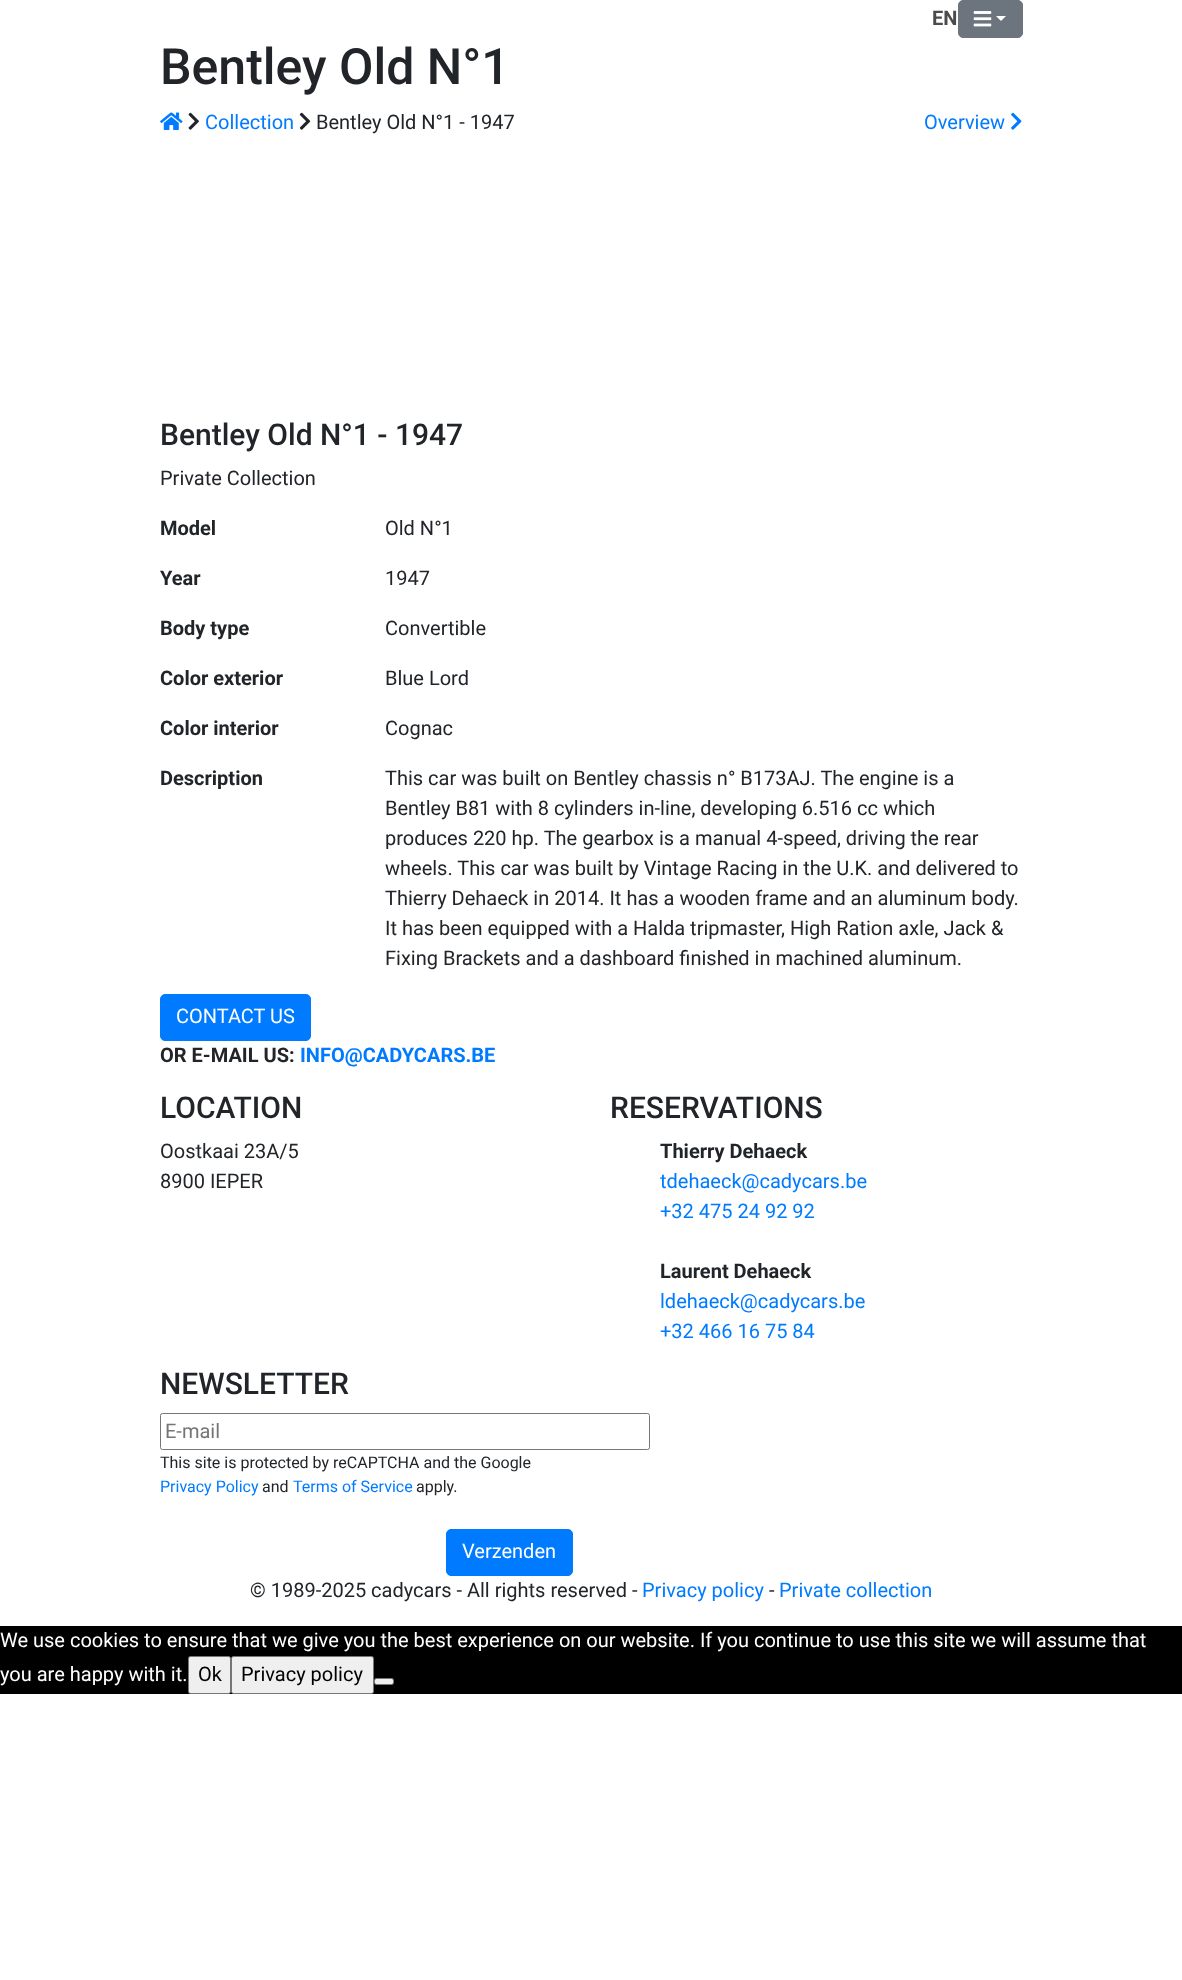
<svg xmlns="http://www.w3.org/2000/svg" width="1182" height="1980">
	<rect width="100%" height="100%" fill="#FFFFFF" />
	<text x="932" y="25" font-family="Roboto" font-size="20" font-weight="700" fill="#4B4B4B">EN</text>
	<rect x="958.5" y="0.5" width="64" height="37" rx="4.5" fill="#6C757D" stroke="#6C757D" />
	<image x="973" y="11" width="19" height="16" href="assets/img1.png" />
	<path d="M996 16H1006L1001 21Z" fill="#FFFFFF" />
	<text x="160" y="84" font-family="Roboto" font-size="50" font-weight="500" fill="#212529">Bentley Old N°1</text>
	<image x="160" y="112" width="23" height="18" href="assets/img2.png" />
	<image x="188" y="112" width="11" height="18" href="assets/img3.png" />
	<text x="205" y="129" font-family="Roboto" font-size="20" fill="#007BFF">Collection</text>
	<image x="299" y="112" width="12" height="18" href="assets/img4.png" />
	<text x="316" y="129" font-family="Roboto" font-size="20" fill="#212529">Bentley Old N°1 - 1947</text>
	<text x="924" y="129" font-family="Roboto" font-size="20" fill="#007BFF">Overview</text>
	<image x="1011" y="112" width="11" height="18" href="assets/img5.png" />
	<text x="160" y="445" font-family="Roboto" font-size="30" font-weight="500" fill="#212529">Bentley Old N°1 - 1947</text>
	<text x="160" y="485" font-family="Roboto" font-size="20" fill="#212529">Private Collection</text>
	<text x="160" y="535" font-family="Roboto" font-size="20" font-weight="700" fill="#212529">Model</text>
	<text x="385" y="535" font-family="Roboto" font-size="20" fill="#212529">Old N°1</text>
	<text x="160" y="585" font-family="Roboto" font-size="20" font-weight="700" fill="#212529">Year</text>
	<text x="385" y="585" font-family="Roboto" font-size="20" fill="#212529">1947</text>
	<text x="160" y="635" font-family="Roboto" font-size="20" font-weight="700" fill="#212529">Body type</text>
	<text x="385" y="635" font-family="Roboto" font-size="20" fill="#212529">Convertible</text>
	<text x="160" y="685" font-family="Roboto" font-size="20" font-weight="700" fill="#212529">Color exterior</text>
	<text x="385" y="685" font-family="Roboto" font-size="20" fill="#212529">Blue Lord</text>
	<text x="160" y="735" font-family="Roboto" font-size="20" font-weight="700" fill="#212529">Color interior</text>
	<text x="385" y="735" font-family="Roboto" font-size="20" fill="#212529">Cognac</text>
	<text x="160" y="785" font-family="Roboto" font-size="20" font-weight="700" fill="#212529">Description</text>
	<g font-family="Roboto" font-size="20" fill="#212529">
		<text x="385" y="785">This car was built on Bentley chassis n° B173AJ. The engine is a</text>
		<text x="385" y="815">Bentley B81 with 8 cylinders in-line, developing 6.516 cc which</text>
		<text x="385" y="845">produces 220 hp. The gearbox is a manual 4-speed, driving the rear</text>
		<text x="385" y="875">wheels. This car was built by Vintage Racing in the U.K. and delivered to</text>
		<text x="385" y="905">Thierry Dehaeck in 2014. It has a wooden frame and an aluminum body.</text>
		<text x="385" y="935">It has been equipped with a Halda tripmaster, High Ration axle, Jack &amp;</text>
		<text x="385" y="965">Fixing Brackets and a dashboard finished in machined aluminum.</text>
	</g>
	<rect x="160.5" y="994.5" width="150" height="46" rx="4.5" fill="#007BFF" stroke="#007BFF" />
	<text x="176" y="1023" font-family="Roboto" font-size="20" fill="#FFFFFF">CONTACT US</text>
	<text x="160" y="1062" font-family="Roboto" font-size="20" font-weight="700" fill="#212529">OR E-MAIL US:</text>
	<text x="300" y="1062" font-family="Roboto" font-size="20" font-weight="700" fill="#007BFF">INFO@CADYCARS.BE</text>
	<text x="160" y="1118" font-family="Roboto" font-size="30" font-weight="500" fill="#212529">LOCATION</text>
	<g font-family="Roboto" font-size="20" fill="#212529">
		<text x="160" y="1158">Oostkaai 23A/5</text>
		<text x="160" y="1188">8900 IEPER</text>
	</g>
	<text x="610" y="1118" font-family="Roboto" font-size="30" font-weight="500" fill="#212529">RESERVATIONS</text>
	<text x="660" y="1158" font-family="Roboto" font-size="20" font-weight="700" fill="#212529">Thierry Dehaeck</text>
	<g font-family="Roboto" font-size="20" fill="#007BFF">
		<text x="660" y="1188">tdehaeck@cadycars.be</text>
		<text x="660" y="1218">+32 475 24 92 92</text>
	</g>
	<text x="660" y="1278" font-family="Roboto" font-size="20" font-weight="700" fill="#212529">Laurent Dehaeck</text>
	<g font-family="Roboto" font-size="20" fill="#007BFF">
		<text x="660" y="1308">ldehaeck@cadycars.be</text>
		<text x="660" y="1338">+32 466 16 75 84</text>
	</g>
	<text x="160" y="1394" font-family="Roboto" font-size="30" font-weight="500" fill="#212529">NEWSLETTER</text>
	<rect x="160.5" y="1413.5" width="489" height="36" rx="2" fill="none" stroke="#767676" />
	<text x="165" y="1438" font-family="Roboto" font-size="20" fill="#757575">E-mail</text>
	<text x="160" y="1468" font-family="Roboto" font-size="16" fill="#212529">This site is protected by reCAPTCHA and the Google</text>
	<text x="160" y="1492" font-family="Roboto" font-size="16" fill="#007BFF">Privacy Policy</text>
	<text x="262" y="1492" font-family="Roboto" font-size="16" fill="#212529">and</text>
	<text x="293" y="1492" font-family="Roboto" font-size="16" fill="#007BFF">Terms of Service</text>
	<text x="416" y="1492" font-family="Roboto" font-size="16" fill="#212529">apply.</text>
	<rect x="446.5" y="1529.5" width="126" height="46" rx="4.5" fill="#007BFF" stroke="#007BFF" />
	<text x="462" y="1558" font-family="Roboto" font-size="20" fill="#FFFFFF">Verzenden</text>
	<text x="250" y="1597" font-family="Roboto" font-size="20" fill="#212529">© 1989-2025 cadycars - All rights reserved -</text>
	<text x="642" y="1597" font-family="Roboto" font-size="20" fill="#007BFF">Privacy policy</text>
	<text x="769" y="1597" font-family="Roboto" font-size="20" fill="#212529">-</text>
	<text x="779" y="1597" font-family="Roboto" font-size="20" fill="#007BFF">Private collection</text>
	<rect x="0" y="1626" width="1182" height="68" fill="#000000" />
	<g font-family="Roboto" font-size="20" fill="#FFFFFF">
		<text x="0" y="1647">We use cookies to ensure that we give you the best experience on our website. If you continue to use this site we will assume that</text>
		<text x="0" y="1681">you are happy with it.</text>
	</g>
	<rect x="188.5" y="1656.5" width="42" height="37" rx="2" fill="#EFEFEF" stroke="#767676" />
	<text x="198" y="1681" font-family="Roboto" font-size="20" fill="#000000">Ok</text>
	<rect x="231.5" y="1656.5" width="142" height="37" rx="2" fill="#EFEFEF" stroke="#767676" />
	<text x="241" y="1681" font-family="Roboto" font-size="20" fill="#000000">Privacy policy</text>
	<rect x="374.5" y="1678.5" width="19" height="6" rx="2" fill="#EFEFEF" stroke="#767676" />
</svg>
